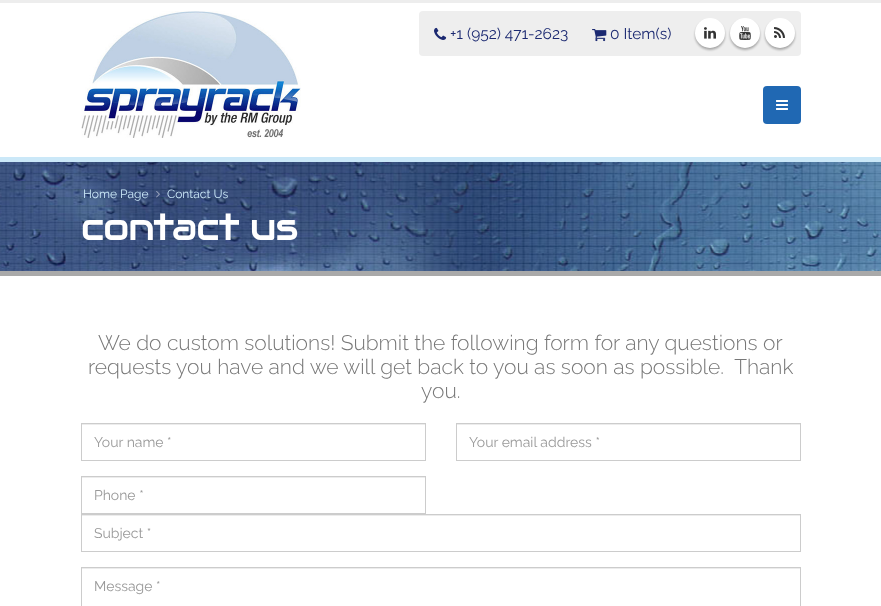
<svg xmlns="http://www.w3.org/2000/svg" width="881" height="606">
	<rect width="100%" height="100%" fill="#FFFFFF" />
	<rect x="0" y="0" width="881" height="3" fill="#EDEDED" />
	<image x="81" y="11" width="220" height="127" href="assets/img1.png" />
	<rect x="419" y="11" width="382" height="45" rx="4" fill="#EEEEEE" />
	<image x="434" y="27" width="13" height="13" href="assets/img2.png" />
	<text x="450" y="39" font-family="Raleway" font-size="15.5" fill="#1B2971">+1 (952) 471-2623</text>
	<image x="592" y="29" width="15" height="13" href="assets/img3.png" />
	<text x="610" y="39" font-family="Raleway" font-size="15.5" fill="#1B2971">0 Item(s)</text>
	<rect x="695" y="20" width="30" height="30" rx="15" fill="#000000" fill-opacity="0.3" filter="blur(1px)" />
	<circle cx="710" cy="33" r="15" fill="#FFFFFF" />
	<image x="704" y="27" width="12" height="12" href="assets/img4.png" />
	<rect x="730" y="20" width="30" height="30" rx="15" fill="#000000" fill-opacity="0.3" filter="blur(1px)" />
	<circle cx="745" cy="33" r="15" fill="#FFFFFF" />
	<image x="739" y="26" width="12" height="14" href="assets/img5.png" />
	<rect x="765" y="20" width="30" height="30" rx="15" fill="#000000" fill-opacity="0.3" filter="blur(1px)" />
	<circle cx="780" cy="33" r="15" fill="#FFFFFF" />
	<image x="774" y="27" width="11" height="11" href="assets/img6.png" />
	<rect x="763" y="86" width="38" height="38" rx="4" fill="#2068B3" />
	<image x="776" y="100" width="12" height="10" href="assets/img7.png" />
	<image x="0" y="162" width="881" height="109" href="assets/img8.png" />
	<rect x="0" y="157" width="881" height="5" fill="#CBE8F8" />
	<rect x="0" y="271" width="881" height="5" fill="#A9A9A9" />
	<text x="83" y="198" font-family="Raleway" font-size="12" fill="#CBE8F8">Home Page</text>
	<image x="156" y="191" width="4" height="7" href="assets/img9.png" />
	<text x="167" y="198" font-family="Raleway" font-size="12" fill="#CBE8F8">Contact Us</text>
	<text x="81" y="240" font-family="Audiowide" font-size="38" letter-spacing="-1" fill="#FFFFFF">contact us</text>
	<g font-family="Raleway" font-size="21" font-weight="300" fill="#777777">
		<text x="98" y="350">We do custom solutions! Submit the following form for any questions or</text>
		<text x="88" y="374" xml:space="preserve">requests you have and we will get back to you as soon as possible.  Thank</text>
		<text x="421" y="398">you.</text>
	</g>
	<rect x="82" y="424" width="343" height="1" fill="#ECECEC" />
	<rect x="81.5" y="423.5" width="344" height="37" fill="none" stroke="#CCCCCC" />
	<text x="94" y="447" font-family="Raleway" font-size="14" fill="#999999">Your name *</text>
	<rect x="457" y="424" width="343" height="1" fill="#ECECEC" />
	<rect x="456.5" y="423.5" width="344" height="37" fill="none" stroke="#CCCCCC" />
	<text x="469" y="447" font-family="Raleway" font-size="14" fill="#999999">Your email address *</text>
	<rect x="82" y="477" width="343" height="1" fill="#ECECEC" />
	<rect x="81.5" y="476.5" width="344" height="37" fill="none" stroke="#CCCCCC" />
	<text x="94" y="500" font-family="Raleway" font-size="14" fill="#999999">Phone *</text>
	<rect x="82" y="515" width="718" height="1" fill="#ECECEC" />
	<rect x="81.5" y="514.5" width="719" height="37" fill="none" stroke="#CCCCCC" />
	<text x="94" y="538" font-family="Raleway" font-size="14" fill="#999999">Subject *</text>
	<rect x="82" y="568" width="718" height="1" fill="#ECECEC" />
	<rect x="81.5" y="567.5" width="719" height="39" fill="none" stroke="#CCCCCC" />
	<text x="94" y="591" font-family="Raleway" font-size="14" fill="#999999">Message *</text>
</svg>
